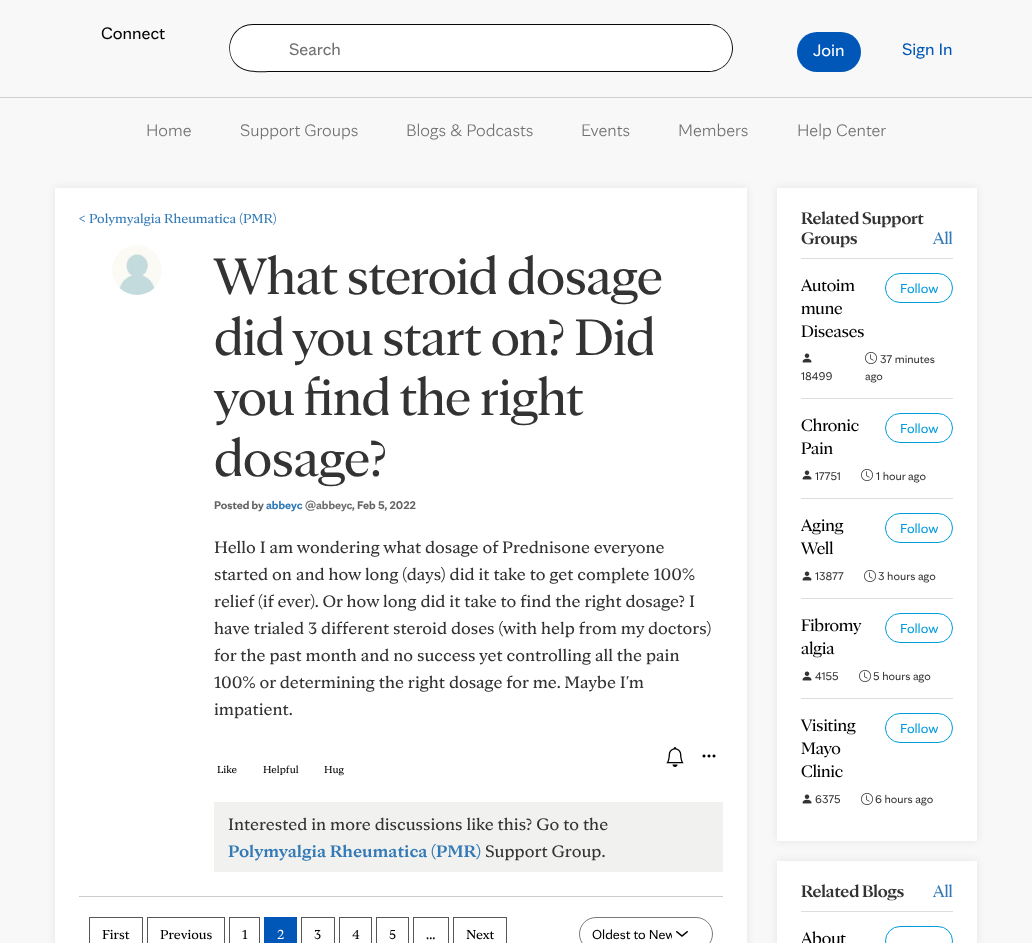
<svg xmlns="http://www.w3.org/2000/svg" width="1032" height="943">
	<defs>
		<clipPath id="clip1"><rect x="592" y="924" width="80" height="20" /></clipPath>
	</defs>
	<rect width="100%" height="100%" fill="#F8F8F8" />
	<rect x="0" y="97" width="1032" height="1" fill="#D0D0D0" />
	<text x="101" y="39" font-family="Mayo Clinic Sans" font-size="18" fill="#000000">Connect</text>
	<path d="M253 24H274V72H253C239.5 72 229 61.5 229 48C229 34.5 239.5 24 253 24Z" fill="#FFFFFF" />
	<path d="M253 24H274V72C265 72 252 73 244 70C220 60 227 24 253 24ZM253 25H274V71C265 71 252 72 244 69C221 60 228 25 253 25Z" fill="#080808" fill-rule="evenodd" />
	<path d="M273 24H709C722.5 24 733 34.5 733 48C733 61.5 722.5 72 709 72H273Z" fill="#FFFFFF" />
	<path d="M273 24H709C722 24 733 35 733 48C733 61 722 72 709 72H273ZM273 25H709C722 25 732 35 732 48C732 61 722 71 709 71H273Z" fill="#080808" fill-rule="evenodd" />
	<text x="289" y="55" font-family="Mayo Clinic Sans" font-size="18" fill="#707070">Search</text>
	<rect x="797" y="32" width="64" height="40" rx="20" fill="#0057B8" />
	<text x="813" y="56" font-family="Mayo Clinic Sans" font-size="18" fill="#FFFFFF">Join</text>
	<text x="902" y="55" font-family="Mayo Clinic Sans" font-size="18" fill="#0057B8">Sign In</text>
	<g font-family="Mayo Clinic Sans" font-size="18" font-weight="300" fill="#707070">
		<text x="146" y="136">Home</text>
		<text x="240" y="136">Support Groups</text>
		<text x="406" y="136">Blogs &amp; Podcasts</text>
		<text x="581" y="136">Events</text>
		<text x="678" y="136">Members</text>
		<text x="797" y="136">Help Center</text>
	</g>
	<rect x="55" y="188" width="692" height="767" fill="#000000" fill-opacity="0.08" filter="blur(4px)" />
	<rect x="55" y="188" width="692" height="755" fill="#FFFFFF" />
	<text x="79" y="223" font-family="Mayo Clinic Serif" font-size="14" fill="#337AB7">&lt; Polymyalgia Rheumatica (PMR)</text>
	<image x="112" y="245" width="50" height="50" href="assets/img1.png" />
	<g font-family="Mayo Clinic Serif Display" font-size="55" fill="#333333">
		<text x="214" y="294">What steroid dosage</text>
		<text x="214" y="355">did you start on? Did</text>
		<text x="214" y="415">you find the right</text>
		<text x="214" y="476">dosage?</text>
	</g>
	<text x="214" y="509" font-family="Mayo Clinic Sans" font-size="12" font-weight="700" fill="#646464">Posted by</text>
	<text x="266" y="509" font-family="Mayo Clinic Sans" font-size="12" font-weight="700" fill="#337AB7">abbeyc</text>
	<text x="305" y="509" font-family="Mayo Clinic Sans" font-size="12" font-weight="700" fill="#707070">@abbeyc</text>
	<text x="352" y="509" font-family="Mayo Clinic Sans" font-size="12" font-weight="700" fill="#646464">, Feb 5, 2022</text>
	<g font-family="Mayo Clinic Serif" font-size="18" fill="#333333">
		<text x="214" y="553">Hello I am wondering what dosage of Prednisone everyone</text>
		<text x="214" y="580">started on and how long (days) did it take to get complete 100%</text>
		<text x="214" y="607">relief (if ever). Or how long did it take to find the right dosage? I</text>
		<text x="214" y="634">have trialed 3 different steroid doses (with help from my doctors)</text>
		<text x="214" y="661">for the past month and no success yet controlling all the pain</text>
		<text x="214" y="688">100% or determining the right dosage for me. Maybe I'm</text>
		<text x="214" y="715">impatient.</text>
	</g>
	<image x="666" y="747" width="18" height="20" href="assets/img2.png" />
	<image x="702" y="754" width="14" height="4" href="assets/img3.png" />
	<g font-family="Mayo Clinic Serif" font-size="11" fill="#000000">
		<text x="217" y="773">Like</text>
		<text x="263" y="773">Helpful</text>
		<text x="324" y="773">Hug</text>
	</g>
	<rect x="214" y="802" width="509" height="70" fill="#F1F1EF" />
	<text x="228" y="830" font-family="Mayo Clinic Serif" font-size="18" fill="#333333">Interested in more discussions like this? Go to the</text>
	<text x="228" y="857" font-family="Mayo Clinic Serif" font-size="18" font-weight="700" fill="#337AB7">Polymyalgia Rheumatica (PMR)</text>
	<text x="485" y="857" font-family="Mayo Clinic Serif" font-size="18" fill="#333333">Support Group.</text>
	<rect x="79" y="896" width="644" height="1" fill="#CBCBCB" />
	<rect x="89.5" y="917.5" width="53" height="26" fill="none" stroke="#54585A" />
	<text x="102" y="939" font-family="Mayo Clinic Serif" font-size="14" fill="#000000">First</text>
	<rect x="147.5" y="917.5" width="77" height="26" fill="none" stroke="#54585A" />
	<text x="160" y="939" font-family="Mayo Clinic Serif" font-size="14" fill="#000000">Previous</text>
	<rect x="229.5" y="917.5" width="30" height="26" fill="none" stroke="#54585A" />
	<text x="242" y="939" font-family="Mayo Clinic Serif" font-size="14" fill="#000000">1</text>
	<rect x="264" y="917" width="33" height="26" fill="#0057B8" />
	<text x="277" y="939" font-family="Mayo Clinic Serif" font-size="14" fill="#FFFFFF">2</text>
	<rect x="301.5" y="917.5" width="33" height="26" fill="none" stroke="#54585A" />
	<text x="314" y="939" font-family="Mayo Clinic Serif" font-size="14" fill="#000000">3</text>
	<rect x="339.5" y="917.5" width="32" height="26" fill="none" stroke="#54585A" />
	<text x="352" y="939" font-family="Mayo Clinic Serif" font-size="14" fill="#000000">4</text>
	<rect x="376.5" y="917.5" width="32" height="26" fill="none" stroke="#54585A" />
	<text x="389" y="939" font-family="Mayo Clinic Serif" font-size="14" fill="#000000">5</text>
	<rect x="413.5" y="917.5" width="35" height="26" fill="none" stroke="#54585A" />
	<text x="426" y="939" font-family="Mayo Clinic Serif" font-size="14" fill="#000000">...</text>
	<rect x="453.5" y="917.5" width="53" height="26" fill="none" stroke="#54585A" />
	<text x="466" y="939" font-family="Mayo Clinic Serif" font-size="14" fill="#000000">Next</text>
	<image x="676" y="931" width="12" height="6" href="assets/img4.png" />
	<rect x="579.5" y="917.5" width="133" height="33" rx="16.5" fill="none" stroke="#7A7A7A" />
	<g clip-path="url(#clip1)">
		<text x="592" y="939" font-family="Mayo Clinic Sans" font-size="14" fill="#000000">Oldest to New</text>
	</g>
	<rect x="777" y="188" width="200" height="653" fill="#000000" fill-opacity="0.08" filter="blur(4px)" />
	<rect x="777" y="188" width="200" height="653" fill="#FFFFFF" />
	<g font-family="Mayo Clinic Serif Display" font-size="18" font-weight="700" fill="#333333">
		<text x="801" y="224">Related Support</text>
		<text x="801" y="244">Groups</text>
	</g>
	<text x="933" y="244" font-family="Mayo Clinic Serif Display" font-size="18" fill="#337AB7">All</text>
	<rect x="801" y="258" width="152" height="1" fill="#DDDDDD" />
	<g font-family="Mayo Clinic Serif Display" font-size="18" fill="#000000">
		<text x="801" y="291">Autoim</text>
		<text x="801" y="314">mune</text>
		<text x="801" y="337">Diseases</text>
	</g>
	<rect x="885.5" y="273.5" width="67" height="29" rx="14.5" fill="none" stroke="#009CDE" />
	<text x="900" y="293" font-family="Mayo Clinic Sans" font-size="14" fill="#009CDE">Follow</text>
	<image x="802" y="353" width="10" height="10" href="assets/img5.png" />
	<text x="801" y="380" font-family="Mayo Clinic Sans" font-size="12" fill="#333333">18499</text>
	<image x="865" y="352" width="12" height="12" href="assets/img6.png" />
	<g font-family="Mayo Clinic Sans" font-size="12" fill="#333333">
		<text x="880" y="363">37 minutes</text>
		<text x="865" y="380">ago</text>
	</g>
	<rect x="801" y="398" width="152" height="1" fill="#DDDDDD" />
	<g font-family="Mayo Clinic Serif Display" font-size="18" fill="#000000">
		<text x="801" y="431">Chronic</text>
		<text x="801" y="454">Pain</text>
	</g>
	<rect x="885.5" y="413.5" width="67" height="29" rx="14.5" fill="none" stroke="#009CDE" />
	<text x="900" y="433" font-family="Mayo Clinic Sans" font-size="14" fill="#009CDE">Follow</text>
	<image x="802" y="470" width="10" height="10" href="assets/img5.png" />
	<text x="815" y="480" font-family="Mayo Clinic Sans" font-size="12" fill="#333333">17751</text>
	<image x="861" y="469" width="12" height="12" href="assets/img6.png" />
	<text x="876" y="480" font-family="Mayo Clinic Sans" font-size="12" fill="#333333">1 hour ago</text>
	<rect x="801" y="498" width="152" height="1" fill="#DDDDDD" />
	<g font-family="Mayo Clinic Serif Display" font-size="18" fill="#000000">
		<text x="801" y="531">Aging</text>
		<text x="801" y="554">Well</text>
	</g>
	<rect x="885.5" y="513.5" width="67" height="29" rx="14.5" fill="none" stroke="#009CDE" />
	<text x="900" y="533" font-family="Mayo Clinic Sans" font-size="14" fill="#009CDE">Follow</text>
	<image x="802" y="571" width="10" height="10" href="assets/img5.png" />
	<text x="815" y="580" font-family="Mayo Clinic Sans" font-size="12" fill="#333333">13877</text>
	<image x="864" y="570" width="12" height="12" href="assets/img6.png" />
	<text x="878" y="580" font-family="Mayo Clinic Sans" font-size="12" fill="#333333">3 hours ago</text>
	<rect x="801" y="598" width="152" height="1" fill="#DDDDDD" />
	<g font-family="Mayo Clinic Serif Display" font-size="18" fill="#000000">
		<text x="801" y="631">Fibromy</text>
		<text x="801" y="654">algia</text>
	</g>
	<rect x="885.5" y="613.5" width="67" height="29" rx="14.5" fill="none" stroke="#009CDE" />
	<text x="900" y="633" font-family="Mayo Clinic Sans" font-size="14" fill="#009CDE">Follow</text>
	<image x="802" y="671" width="10" height="10" href="assets/img5.png" />
	<text x="815" y="680" font-family="Mayo Clinic Sans" font-size="12" fill="#333333">4155</text>
	<image x="859" y="670" width="12" height="12" href="assets/img6.png" />
	<text x="873" y="680" font-family="Mayo Clinic Sans" font-size="12" fill="#333333">5 hours ago</text>
	<rect x="801" y="698" width="152" height="1" fill="#DDDDDD" />
	<g font-family="Mayo Clinic Serif Display" font-size="18" fill="#000000">
		<text x="801" y="731">Visiting</text>
		<text x="801" y="754">Mayo</text>
		<text x="801" y="777">Clinic</text>
	</g>
	<rect x="885.5" y="713.5" width="67" height="29" rx="14.5" fill="none" stroke="#009CDE" />
	<text x="900" y="733" font-family="Mayo Clinic Sans" font-size="14" fill="#009CDE">Follow</text>
	<image x="802" y="794" width="10" height="10" href="assets/img5.png" />
	<text x="815" y="803" font-family="Mayo Clinic Sans" font-size="12" fill="#333333">6375</text>
	<image x="861" y="793" width="12" height="12" href="assets/img6.png" />
	<text x="875" y="803" font-family="Mayo Clinic Sans" font-size="12" fill="#333333">6 hours ago</text>
	<rect x="777" y="861" width="200" height="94" fill="#000000" fill-opacity="0.08" filter="blur(4px)" />
	<rect x="777" y="861" width="200" height="82" fill="#FFFFFF" />
	<text x="801" y="897" font-family="Mayo Clinic Serif Display" font-size="18" font-weight="700" fill="#333333">Related Blogs</text>
	<text x="933" y="897" font-family="Mayo Clinic Serif Display" font-size="18" fill="#337AB7">All</text>
	<rect x="801" y="911" width="152" height="1" fill="#DDDDDD" />
	<text x="801" y="944" font-family="Mayo Clinic Serif Display" font-size="18" fill="#000000">About</text>
	<rect x="885.5" y="926.5" width="67" height="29" rx="14.5" fill="none" stroke="#009CDE" />
</svg>
